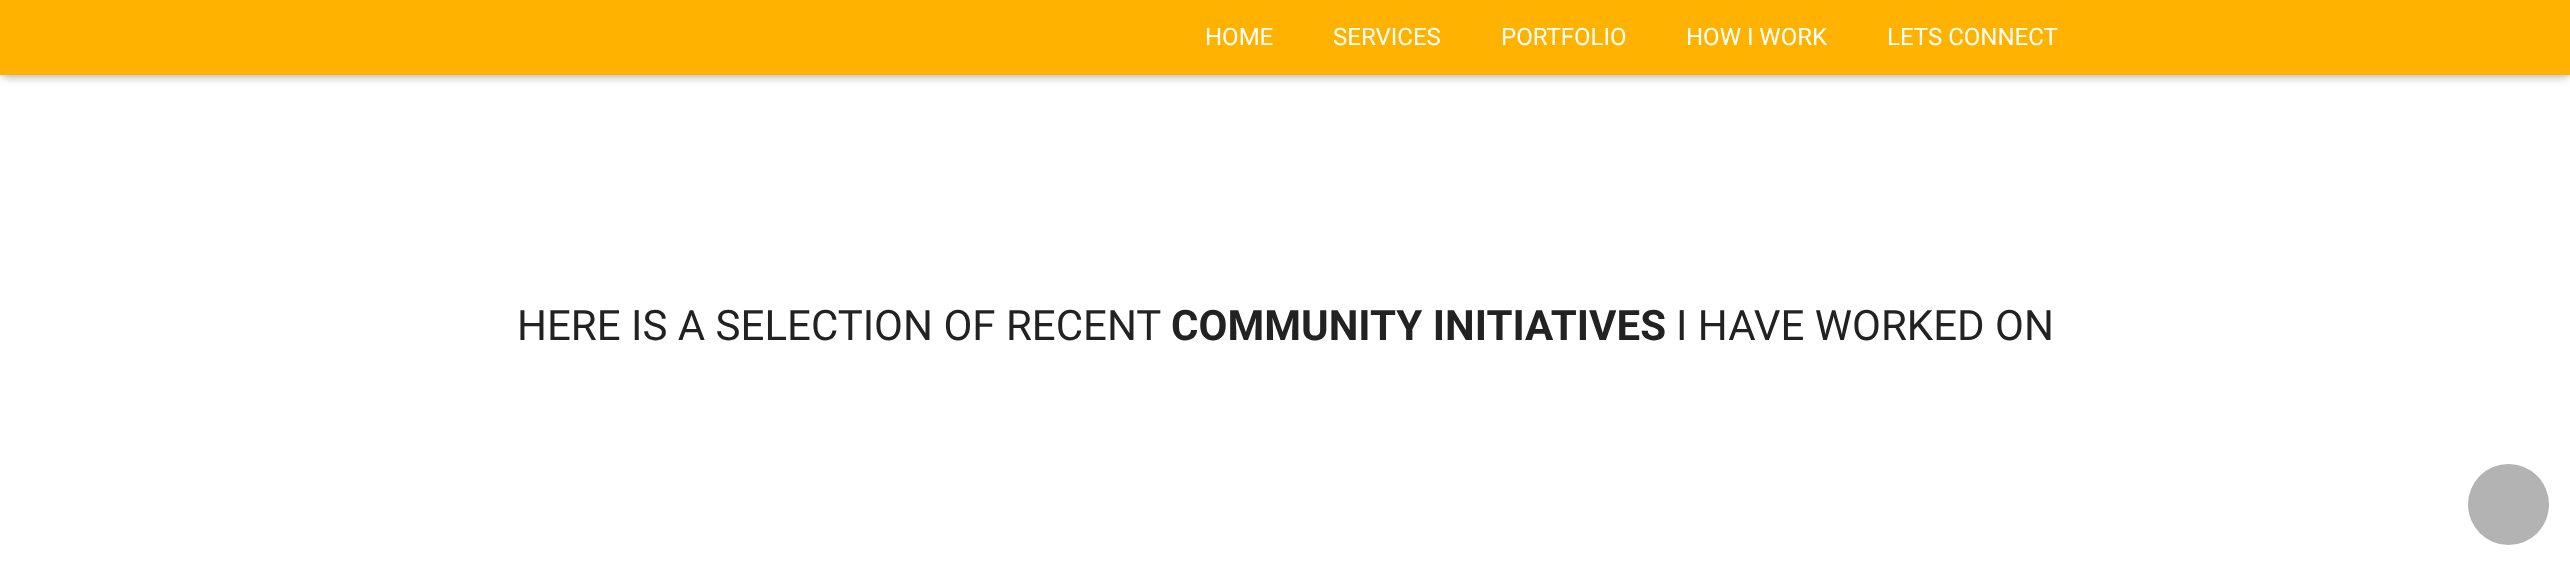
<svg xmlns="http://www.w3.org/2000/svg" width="2570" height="567">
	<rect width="100%" height="100%" fill="#FFFFFF" />
	<rect x="2" y="5" width="2568" height="72" fill="#000000" fill-opacity="0.05" filter="blur(1px)" />
	<rect x="3" y="9" width="2565" height="69" fill="#000000" fill-opacity="0.22" filter="blur(4px)" />
	<rect x="0" y="0" width="2570" height="75" fill="#FFB300" />
	<g font-family="Roboto" font-size="24" fill="#FFFFFF">
		<text x="1205" y="45">HOME</text>
		<text x="1333" y="45">SERVICES</text>
		<text x="1501" y="45">PORTFOLIO</text>
		<text x="1686" y="45">HOW I WORK</text>
		<text x="1887" y="45">LETS CONNECT</text>
	</g>
	<text x="517" y="340" font-family="Roboto" font-size="42" fill="#222222">HERE IS A SELECTION OF RECENT</text>
	<text x="1171" y="340" font-family="Roboto" font-size="42" font-weight="700" fill="#222222">COMMUNITY INITIATIVES</text>
	<text x="1676" y="340" font-family="Roboto" font-size="42" fill="#222222">I HAVE WORKED ON</text>
	<circle cx="2508.5" cy="504.5" r="40.5" fill="#B3B3B3" />
</svg>
